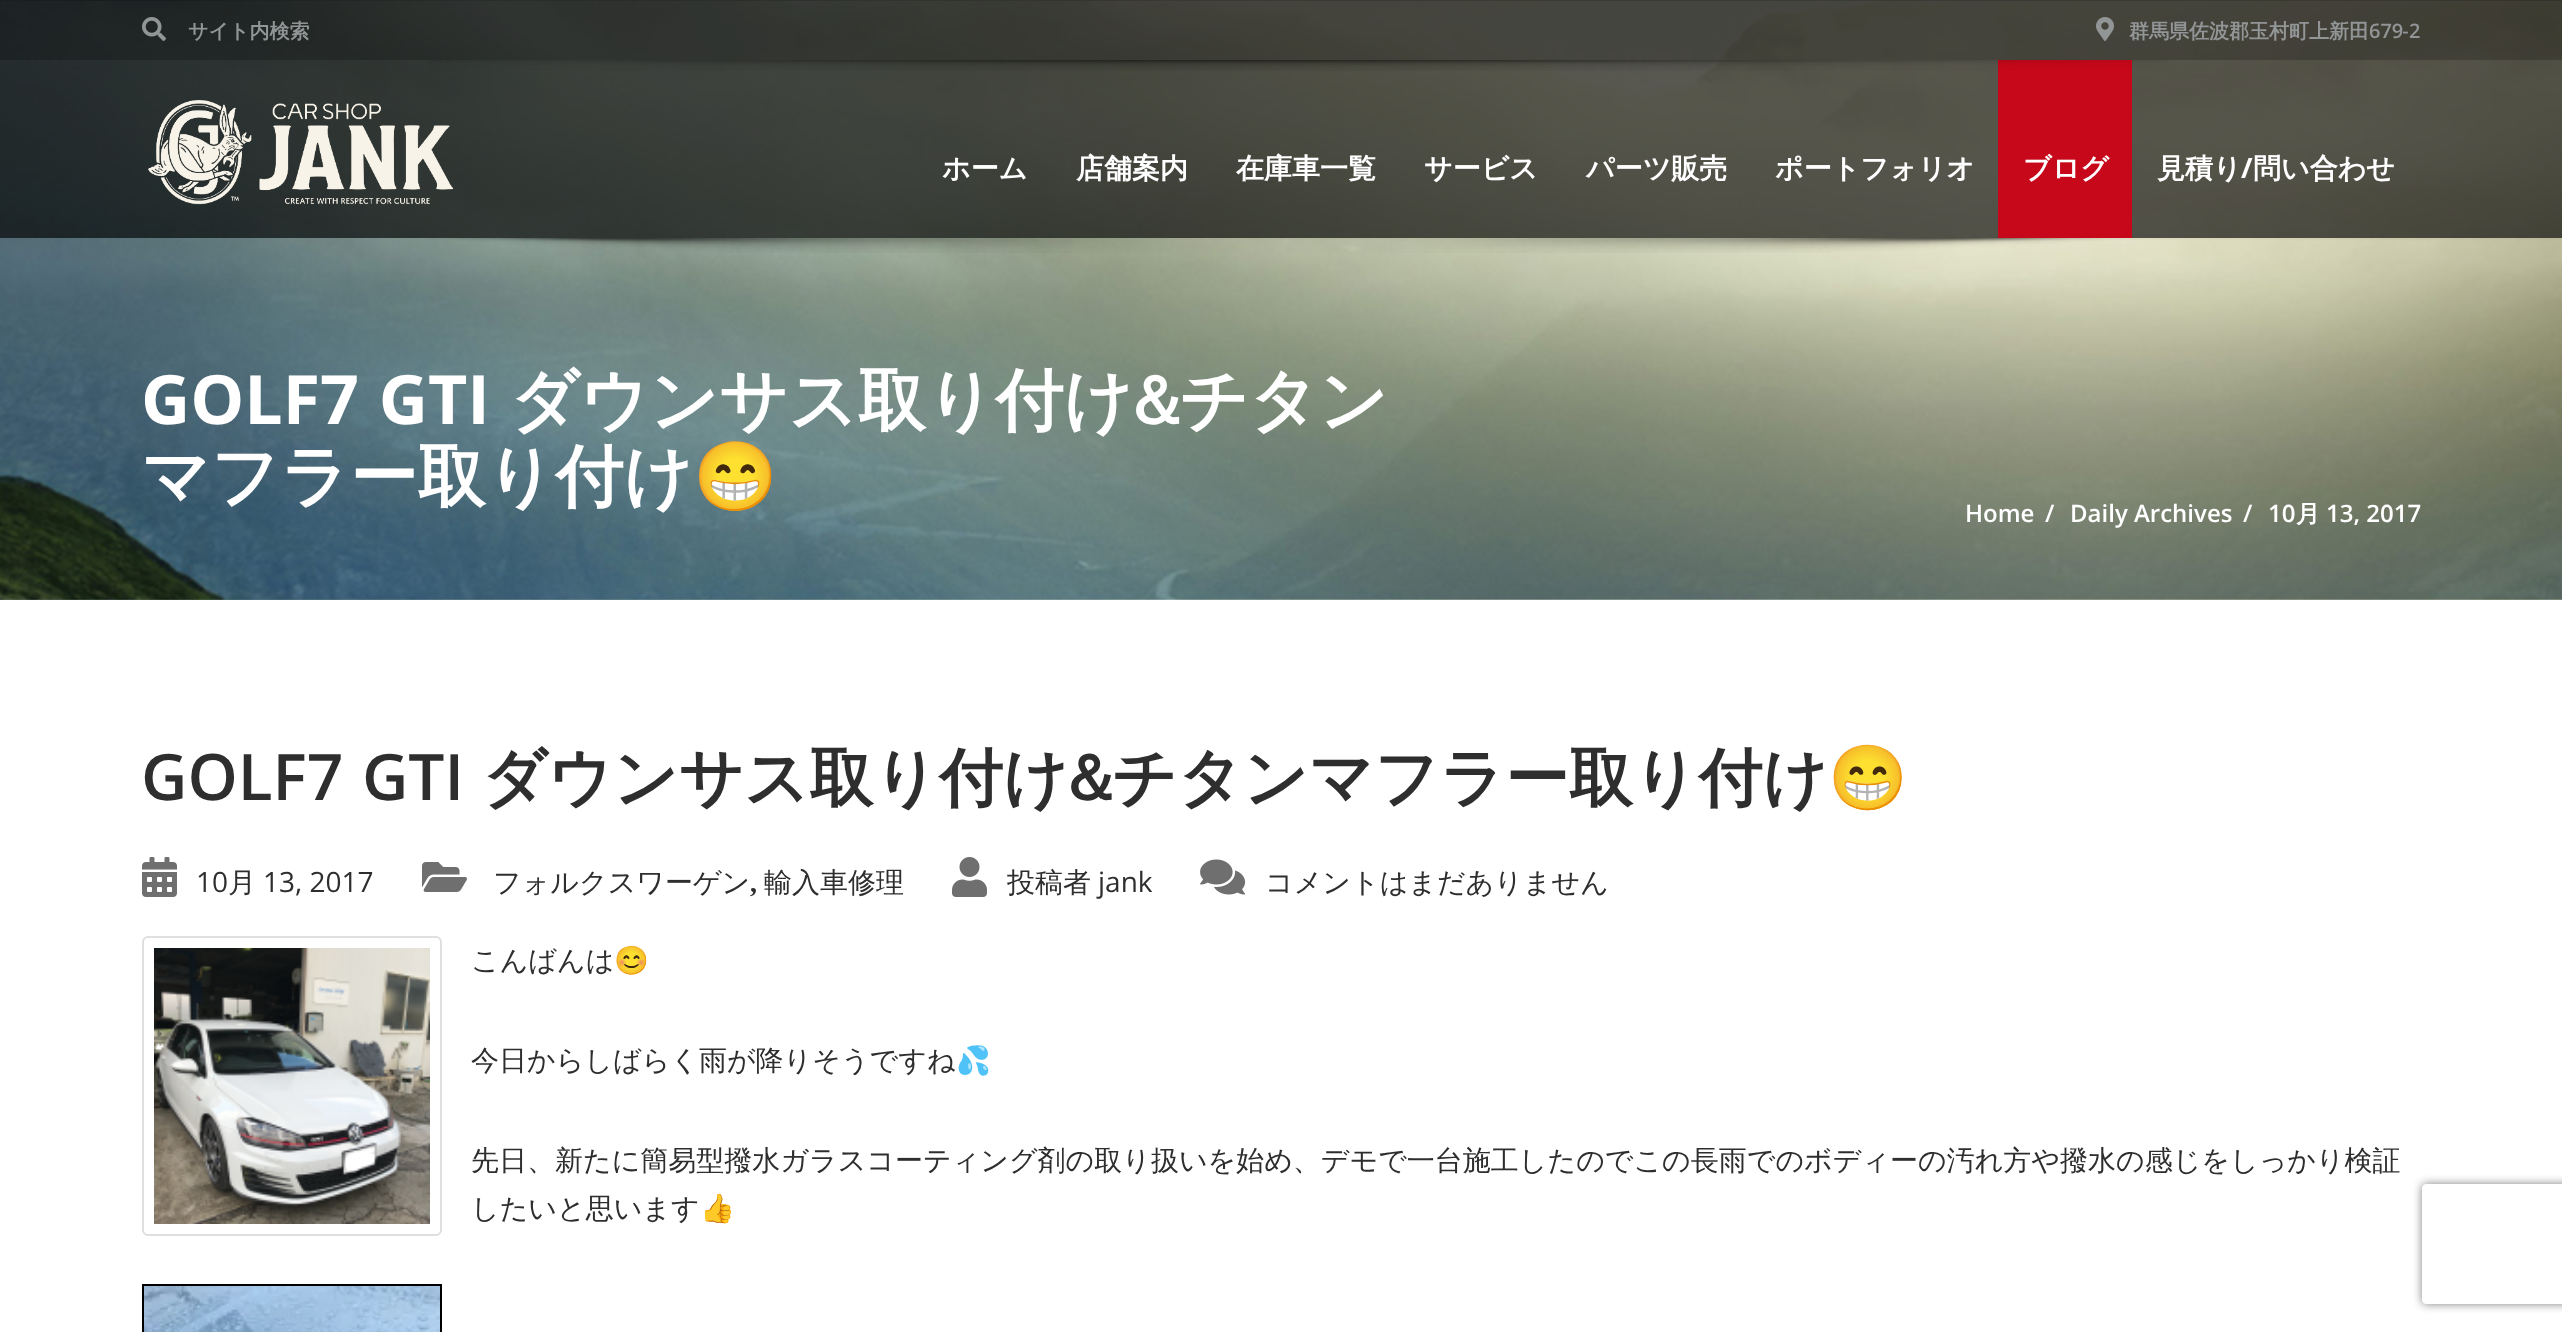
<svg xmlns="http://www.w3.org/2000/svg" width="2562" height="1332">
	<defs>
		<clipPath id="clip1"><path d="M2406 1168H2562V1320H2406ZM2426 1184H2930C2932 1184 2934 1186 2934 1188V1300C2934 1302 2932 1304 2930 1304H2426C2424 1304 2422 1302 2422 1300V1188C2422 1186 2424 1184 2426 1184Z" clip-rule="evenodd" /></clipPath>
	</defs>
	<rect width="100%" height="100%" fill="#FFFFFF" />
	<image x="0" y="0" width="2562" height="600" href="assets/img6.png" />
	<rect x="0" y="0" width="2562" height="238" fill="#000000" fill-opacity="0.65" />
	<rect x="0" y="0" width="2562" height="60" fill="#000000" fill-opacity="0.2" />
	<image x="142" y="17" width="24" height="24" href="assets/img1.png" />
	<text x="188" y="38" font-family="WenQuanYi Zen Hei" font-size="20" font-weight="700" fill="#929596">サイト内検索</text>
	<image x="2096" y="17" width="18" height="24" href="assets/img2.png" />
	<text x="2129" y="38" font-family="WenQuanYi Zen Hei" font-size="20" font-weight="700" fill="#929596">群馬県佐波郡玉村町上新田</text>
	<text x="2369" y="38" font-family="Open Sans" font-size="20" font-weight="600" fill="#929596">679</text>
	<text x="2403" y="38" font-family="WenQuanYi Zen Hei" font-size="20" font-weight="700" fill="#929596">-</text>
	<text x="2409" y="38" font-family="Open Sans" font-size="20" font-weight="600" fill="#929596">2</text>
	<rect x="1998" y="60" width="134" height="178" fill="#C7081B" />
	<image x="428" y="60" width="1741" height="11" href="assets/img3.png" />
	<image x="148" y="100" width="306" height="105" href="assets/img4.png" />
	<g font-family="WenQuanYi Zen Hei" font-size="28" font-weight="700" fill="#FFFFFF">
		<text x="942" y="178">ホーム</text>
		<text x="1076" y="178">店舗案内</text>
		<text x="1236" y="178">在庫車一覧</text>
		<text x="1424" y="178">サービス</text>
		<text x="1586" y="178">パーツ販売</text>
		<text x="1775" y="178">ポートフォリオ</text>
		<text x="2023" y="178">ブログ</text>
		<text x="2157" y="178">見積り</text>
	</g>
	<text x="2241" y="178" font-family="Open Sans" font-size="28" font-weight="700" fill="#FFFFFF">/</text>
	<text x="2253" y="178" font-family="WenQuanYi Zen Hei" font-size="28" font-weight="700" fill="#FFFFFF">問い合わせ</text>
	<image x="425" y="238" width="2134" height="15" href="assets/img5.png" />
	<text x="141" y="424" word-spacing="2" font-family="Open Sans" font-size="68" font-weight="700" fill="#FFFFFF">GOLF7 GTI</text>
	<g font-family="WenQuanYi Zen Hei" font-size="68" font-weight="700" fill="#FFFFFF">
		<text x="510" y="424">ダウンサス取り付け&amp;チタン</text>
		<text x="141" y="500">マフラー取り付け</text>
	</g>
	<text x="693" y="500" font-family="Noto Color Emoji" font-size="68" font-weight="700" fill="#FFFFFF">😁</text>
	<g font-family="Open Sans" font-size="24" font-weight="600" fill="#FFFFFF">
		<text x="1965" y="522">Home</text>
		<text x="2045" y="522">/</text>
		<text x="2070" y="522">Daily Archives</text>
		<text x="2243" y="522">/</text>
		<text x="2268" y="522">10</text>
	</g>
	<text x="2296" y="522" font-family="WenQuanYi Zen Hei" font-size="24" font-weight="700" fill="#FFFFFF">月</text>
	<text x="2326" y="522" font-family="Open Sans" font-size="24" font-weight="600" fill="#FFFFFF">13, 2017</text>
	<text x="141" y="800" word-spacing="2" font-family="Open Sans" font-size="64" font-weight="600" fill="#2E2E2E">GOLF7 GTI</text>
	<text x="482" y="800" font-family="WenQuanYi Zen Hei" font-size="64" font-weight="700" fill="#2E2E2E">ダウンサス取り付け&amp;チタンマフラー取り付け</text>
	<text x="1828" y="800" font-family="Noto Color Emoji" font-size="64" font-weight="700" fill="#2E2E2E">😁</text>
	<image x="142" y="857" width="35" height="40" href="assets/img7.png" />
	<text x="196" y="892" font-family="Open Sans" font-size="28" fill="#2E2E2E">10</text>
	<text x="228" y="892" font-family="WenQuanYi Zen Hei" font-size="28" font-weight="500" fill="#2E2E2E">月</text>
	<text x="263" y="892" font-family="Open Sans" font-size="28" fill="#2E2E2E">13, 2017</text>
	<image x="422" y="862" width="45" height="30" href="assets/img8.png" />
	<text x="493" y="892" font-family="WenQuanYi Zen Hei" font-size="28" font-weight="500" fill="#2E2E2E">フォルクスワーゲン</text>
	<text x="750" y="892" font-family="Liberation Serif" font-size="28" font-weight="700" fill="#2E2E2E">,</text>
	<text x="764" y="892" font-family="WenQuanYi Zen Hei" font-size="28" font-weight="500" fill="#2E2E2E">輸入車修理</text>
	<image x="952" y="857" width="35" height="40" href="assets/img9.png" />
	<text x="1007" y="892" font-family="WenQuanYi Zen Hei" font-size="28" font-weight="500" fill="#2E2E2E">投稿者</text>
	<text x="1098" y="892" font-family="Open Sans" font-size="28" fill="#2E2E2E">jank</text>
	<image x="1200" y="859" width="46" height="36" href="assets/img10.png" />
	<text x="1265" y="892" font-family="WenQuanYi Zen Hei" font-size="28" font-weight="500" fill="#2E2E2E">コメントはまだありません</text>
	<rect x="143" y="937" width="298" height="298" rx="5" fill="none" stroke="#DFDFDF" stroke-width="2" />
	<image x="154" y="948" width="276" height="276" href="assets/img11.png" />
	<text x="471" y="970" font-family="WenQuanYi Zen Hei" font-size="28" font-weight="500" fill="#2E2E2E">こんばんは</text>
	<text x="614" y="970" font-family="Noto Color Emoji" font-size="28" fill="#2E2E2E">😊</text>
	<text x="471" y="1070" font-family="WenQuanYi Zen Hei" font-size="28" font-weight="500" fill="#2E2E2E">今日からしばらく雨が降りそうですね</text>
	<text x="956" y="1070" font-family="Noto Color Emoji" font-size="28" fill="#2E2E2E">💦</text>
	<g font-family="WenQuanYi Zen Hei" font-size="28" font-weight="500" fill="#2E2E2E">
		<text x="471" y="1170">先日、新たに簡易型撥水ガラスコーティング剤の取り扱いを始め、デモで一台施工したのでこの長雨でのボディーの汚れ方や撥水の感じをしっかり検証</text>
		<text x="471" y="1218">したいと思います</text>
	</g>
	<text x="700" y="1218" font-family="Noto Color Emoji" font-size="28" fill="#2E2E2E">👍</text>
	<rect x="143" y="1285" width="298" height="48" fill="none" stroke="#000000" stroke-width="2" />
	<image x="144" y="1286" width="296" height="46" href="assets/img12.png" />
	<g clip-path="url(#clip1)">
		<rect x="2422" y="1184" width="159" height="120" rx="4" fill="#808080" filter="blur(5px)" />
	</g>
</svg>
